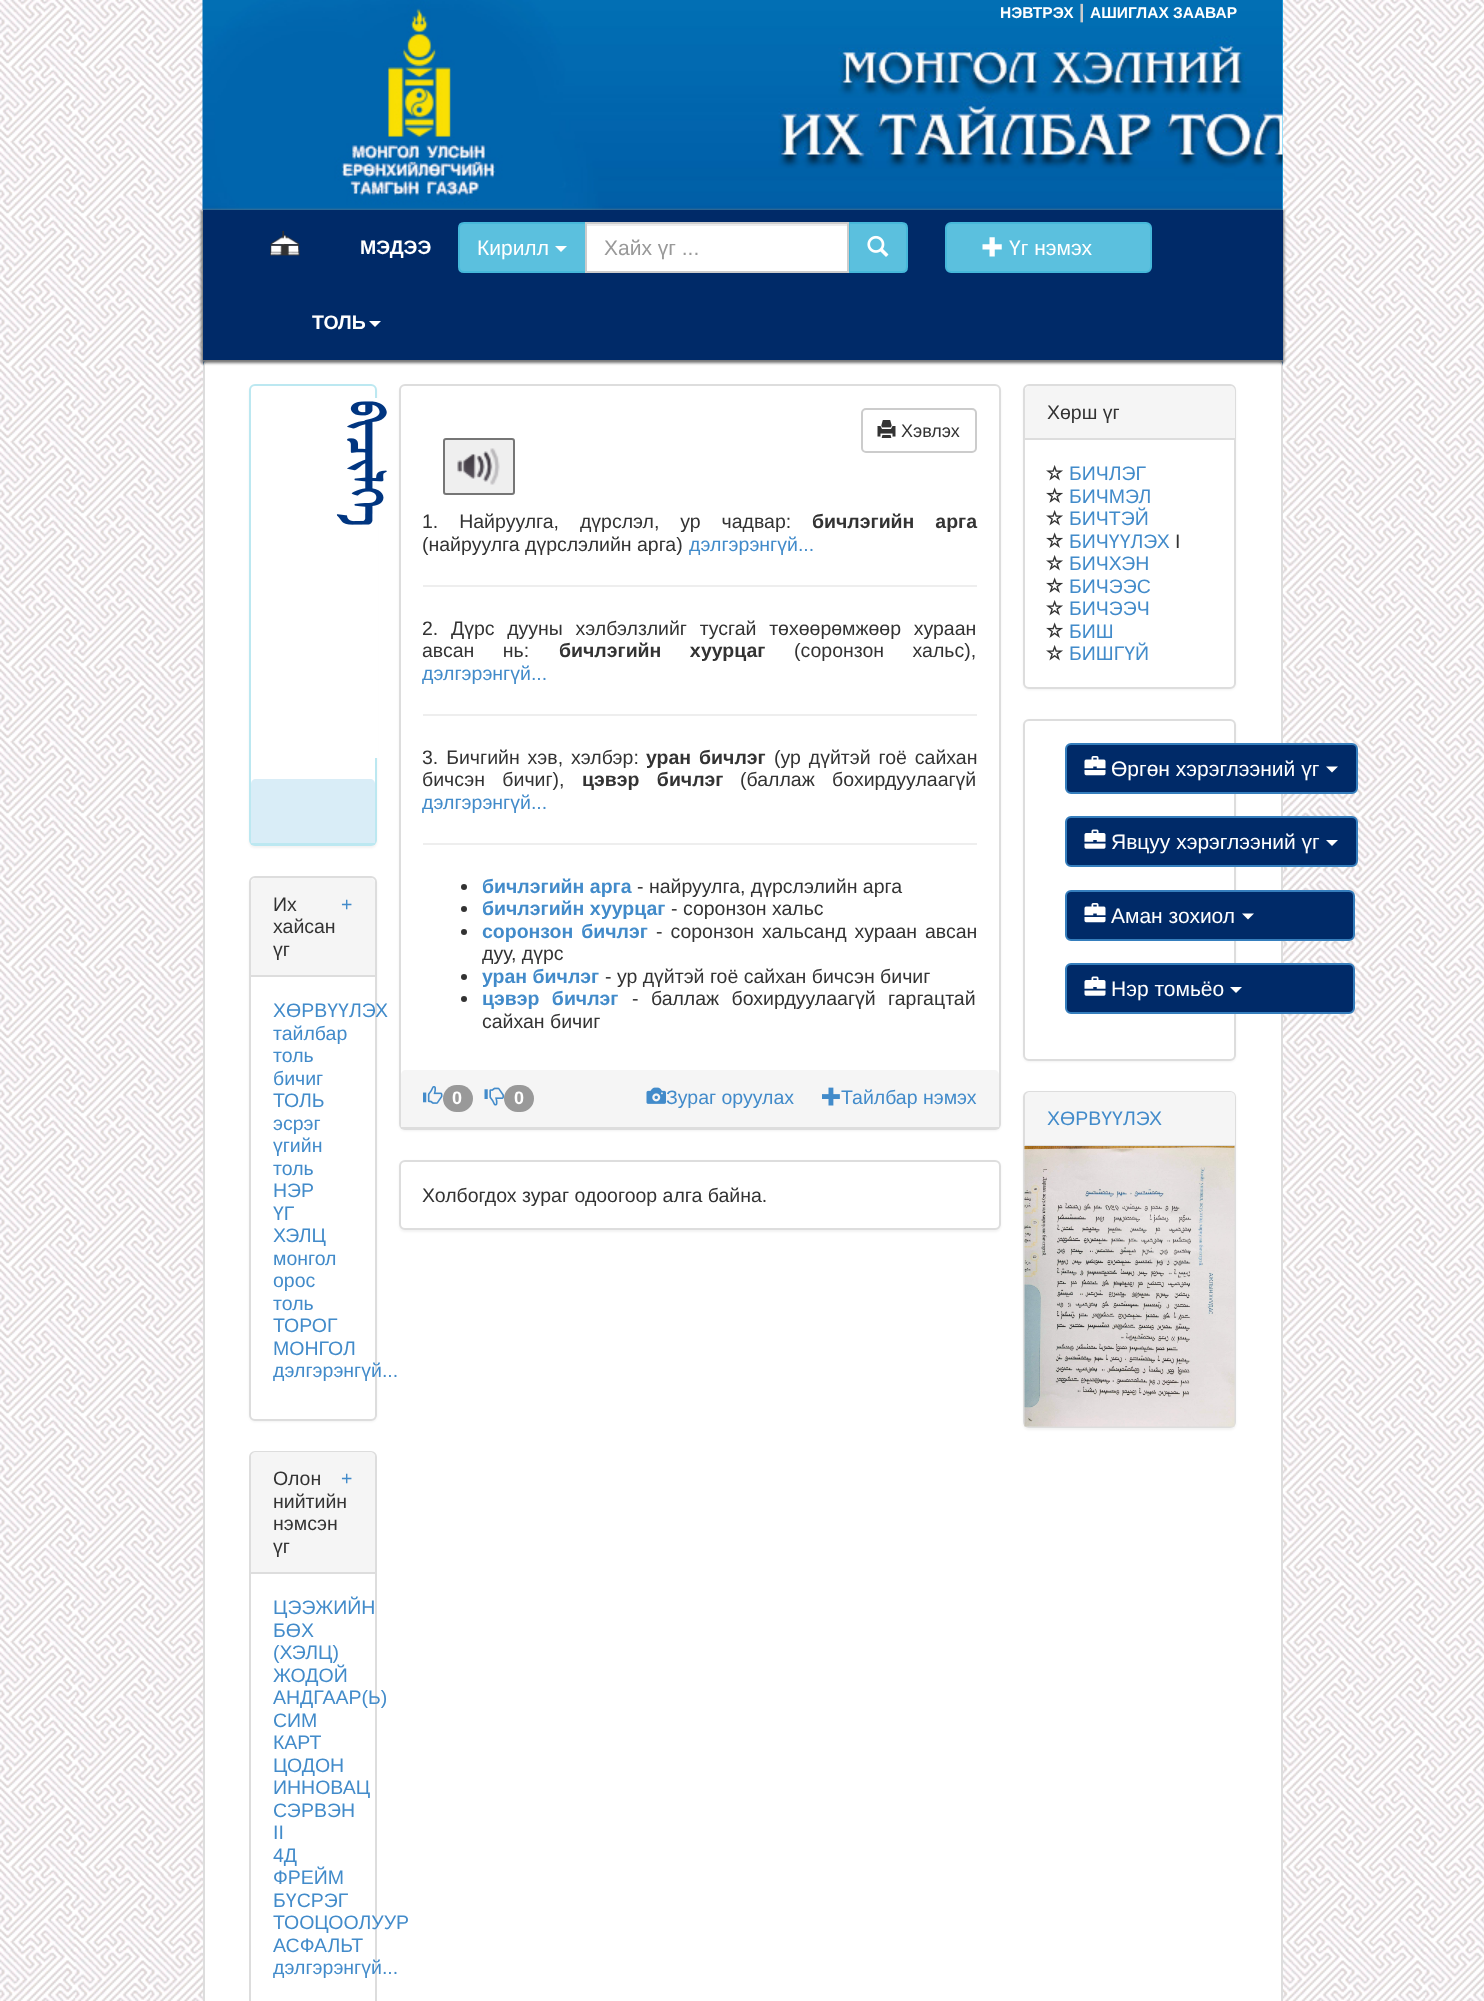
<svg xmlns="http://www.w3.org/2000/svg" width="1484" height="2001">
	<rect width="100%" height="100%" fill="#FFFFFF" />
	<image x="0" y="0" width="1484" height="2001" href="assets/img1.png" />
	<rect x="1282" y="0" width="1" height="210" fill="#2DBFFB" />
	<image x="202" y="0" width="1081" height="210" href="assets/img2.png" />
	<text x="1000" y="18" font-family="Liberation Sans" font-size="15.5" font-weight="700" fill="#FFFFFF">НЭВТРЭХ</text>
	<text x="1079" y="18" font-family="Liberation Sans" font-size="19.5" font-weight="700" fill="#CCCCCC">|</text>
	<text x="1090" y="18" font-family="Liberation Sans" font-size="15.5" font-weight="700" fill="#FFFFFF">АШИГЛАХ ЗААВАР</text>
	<rect x="203" y="360" width="1080" height="6" fill="#004081" />
	<rect x="204" y="361" width="1078" height="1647" rx="5" fill="#FFFFFF" stroke="#DDDDDD" stroke-width="2" />
	<rect x="201" y="210" width="1083" height="153" fill="#777777" filter="blur(1.5px)" />
	<rect x="203" y="210" width="1080" height="150" fill="#002A68" />
	<image x="270" y="230" width="30" height="26" href="assets/img3.png" />
	<g font-family="Liberation Sans" font-size="19.5" font-weight="700" fill="#FFFFFF">
		<text x="360" y="254">МЭДЭЭ</text>
		<text x="312" y="329">ТОЛЬ</text>
	</g>
	<path d="M369 321H381L375 327Z" fill="#FFFFFF" />
	<path d="M464 223H586V272H464C461 272 459 270 459 267V228C459 225 461 223 464 223Z" fill="#5BC0DE" stroke="#46B8DA" stroke-width="2" />
	<text x="477" y="255" font-family="Liberation Sans" font-size="21" fill="#FFFFFF">Кирилл</text>
	<path d="M555 246H567L561 252Z" fill="#FFFFFF" />
	<rect x="587" y="226" width="260" height="45" fill="#FFFFFF" />
	<rect x="587" y="224" width="261" height="2" fill="#ECECEC" />
	<path d="M849 223H902C905 223 907 225 907 228V267C907 270 905 272 902 272H849Z" fill="#5BC0DE" stroke="#46B8DA" stroke-width="2" />
	<rect x="586" y="223" width="262" height="49" fill="none" stroke="#CCCCCC" stroke-width="2" />
	<text x="604" y="255" font-family="Liberation Sans" font-size="21" fill="#999999">Хайх үг ...</text>
	<image x="867" y="235" width="22" height="22" href="assets/img4.png" />
	<rect x="946" y="223" width="205" height="49" rx="5" fill="#5BC0DE" stroke="#46B8DA" stroke-width="2" />
	<image x="982" y="237" width="20" height="20" href="assets/img5.png" />
	<text x="1009" y="255" font-family="Liberation Sans" font-size="21" fill="#FFFFFF">Үг нэмэх</text>
	<rect x="399" y="386" width="602" height="745" rx="6" fill="#000000" fill-opacity="0.05" filter="blur(1px)" />
	<rect x="400" y="385" width="600" height="744" rx="5" fill="#FFFFFF" stroke="#DDDDDD" stroke-width="2" />
	<rect x="862" y="409" width="114" height="43" rx="4" fill="none" stroke="#CCCCCC" stroke-width="2" />
	<image x="877" y="420" width="19" height="18" href="assets/img6.png" />
	<text x="901" y="437" font-family="Liberation Sans" font-size="18" fill="#333333">Хэвлэх</text>
	<rect x="444" y="439" width="70" height="55" rx="2" fill="#EFEFEF" stroke="#767676" stroke-width="2" />
	<image x="457" y="448" width="43" height="37" href="assets/img7.png" />
	<text x="422" y="528" word-spacing="15.5" font-family="Liberation Sans" font-size="19.5" fill="#333333">1. Найруулга, дүрслэл, ур чадвар:</text>
	<text x="812" y="528" word-spacing="15.5" font-family="Liberation Sans" font-size="19.5" font-weight="700" fill="#333333">бичлэгийн арга</text>
	<text x="422" y="551" font-family="Liberation Sans" font-size="19.5" fill="#333333">(найруулга дүрслэлийн арга)</text>
	<text x="689" y="551" font-family="Liberation Sans" font-size="19.5" fill="#428BCA">дэлгэрэнгүй...</text>
	<rect x="423" y="585" width="554" height="2" fill="#EEEEEE" />
	<g font-family="Liberation Sans" font-size="19.5" fill="#333333">
		<text x="422" y="635" word-spacing="7.25">2. Дүрс дууны хэлбэлзлийг тусгай төхөөрөмжөөр хураан</text>
		<text x="422" y="657" word-spacing="23">авсан нь:</text>
	</g>
	<text x="559" y="657" word-spacing="23" font-family="Liberation Sans" font-size="19.5" font-weight="700" fill="#333333">бичлэгийн хуурцаг</text>
	<text x="794" y="657" word-spacing="23" font-family="Liberation Sans" font-size="19.5" fill="#333333">(соронзон хальс),</text>
	<text x="422" y="680" font-family="Liberation Sans" font-size="19.5" fill="#428BCA">дэлгэрэнгүй...</text>
	<rect x="423" y="714" width="554" height="2" fill="#EEEEEE" />
	<text x="422" y="764" word-spacing="2.5" font-family="Liberation Sans" font-size="19.5" fill="#333333">3. Бичгийн хэв, хэлбэр:</text>
	<text x="646" y="764" word-spacing="2.5" font-family="Liberation Sans" font-size="19.5" font-weight="700" fill="#333333">уран бичлэг</text>
	<g font-family="Liberation Sans" font-size="19.5" fill="#333333">
		<text x="774" y="764" word-spacing="2.5">(ур дүйтэй гоё сайхан</text>
		<text x="422" y="786" word-spacing="12">бичсэн бичиг),</text>
	</g>
	<text x="582" y="786" word-spacing="12" font-family="Liberation Sans" font-size="19.5" font-weight="700" fill="#333333">цэвэр бичлэг</text>
	<text x="740" y="786" word-spacing="12" font-family="Liberation Sans" font-size="19.5" fill="#333333">(баллаж бохирдуулаагүй</text>
	<text x="422" y="809" font-family="Liberation Sans" font-size="19.5" fill="#428BCA">дэлгэрэнгүй...</text>
	<rect x="423" y="843" width="554" height="2" fill="#EEEEEE" />
	<circle cx="464" cy="887" r="3" fill="#333333" />
	<text x="482" y="893" font-family="Liberation Sans" font-size="19.5" font-weight="700" fill="#428BCA">бичлэгийн арга</text>
	<text x="637" y="893" font-family="Liberation Sans" font-size="19.5" fill="#333333">- найруулга, дүрслэлийн арга</text>
	<circle cx="464" cy="909" r="3" fill="#333333" />
	<text x="482" y="915" font-family="Liberation Sans" font-size="19.5" font-weight="700" fill="#428BCA">бичлэгийн хуурцаг</text>
	<text x="671" y="915" font-family="Liberation Sans" font-size="19.5" fill="#333333">- соронзон хальс</text>
	<circle cx="464" cy="932" r="3" fill="#333333" />
	<text x="482" y="938" word-spacing="2.5" font-family="Liberation Sans" font-size="19.5" font-weight="700" fill="#428BCA">соронзон бичлэг</text>
	<g font-family="Liberation Sans" font-size="19.5" fill="#333333">
		<text x="656" y="938" word-spacing="2.5">- соронзон хальсанд хураан авсан</text>
		<text x="482" y="960">дуу, дүрс</text>
	</g>
	<circle cx="464" cy="977" r="3" fill="#333333" />
	<text x="482" y="983" font-family="Liberation Sans" font-size="19.5" font-weight="700" fill="#428BCA">уран бичлэг</text>
	<text x="605" y="983" font-family="Liberation Sans" font-size="19.5" fill="#333333">- ур дүйтэй гоё сайхан бичсэн бичиг</text>
	<circle cx="464" cy="999" r="3" fill="#333333" />
	<text x="482" y="1005" word-spacing="7" font-family="Liberation Sans" font-size="19.5" font-weight="700" fill="#428BCA">цэвэр бичлэг</text>
	<g font-family="Liberation Sans" font-size="19.5" fill="#333333">
		<text x="632" y="1005" word-spacing="7">- баллаж бохирдуулаагүй гаргацтай</text>
		<text x="482" y="1028">сайхан бичиг</text>
	</g>
	<path d="M406 1070H994C997 1070 999 1072 999 1075V1128H401V1075C401 1072 403 1070 406 1070Z" fill="#F5F5F5" />
	<rect x="401" y="1127" width="598" height="2" fill="#DDDDDD" />
	<image x="423" y="1086" width="20" height="18" href="assets/img8.png" />
	<rect x="443" y="1085" width="30" height="27" rx="13.5" fill="#999999" />
	<text x="452" y="1104" font-family="Liberation Sans" font-size="18" font-weight="700" fill="#FFFFFF">0</text>
	<image x="484" y="1087" width="20" height="19" href="assets/img9.png" />
	<rect x="504" y="1085" width="30" height="27" rx="13.5" fill="#999999" />
	<text x="514" y="1104" font-family="Liberation Sans" font-size="18" font-weight="700" fill="#FFFFFF">0</text>
	<image x="646" y="1087" width="20" height="17" href="assets/img10.png" />
	<text x="666" y="1104" font-family="Liberation Sans" font-size="19.5" fill="#428BCA">Зураг оруулах</text>
	<image x="822" y="1087" width="18" height="19" href="assets/img11.png" />
	<text x="841" y="1104" font-family="Liberation Sans" font-size="19.5" fill="#428BCA">Тайлбар нэмэх</text>
	<rect x="399" y="1161" width="602" height="71" rx="6" fill="#000000" fill-opacity="0.05" filter="blur(1px)" />
	<rect x="400" y="1161" width="600" height="68" rx="5" fill="#FFFFFF" stroke="#DDDDDD" stroke-width="2" />
	<text x="422" y="1202" font-family="Liberation Sans" font-size="19.5" fill="#333333">Холбогдох зураг одоогоор алга байна.</text>
	<rect x="1023" y="386" width="213" height="304" rx="6" fill="#000000" fill-opacity="0.05" filter="blur(1px)" />
	<rect x="1024" y="385" width="211" height="303" rx="5" fill="#FFFFFF" stroke="#DDDDDD" stroke-width="2" />
	<path d="M1030 386H1230C1233 386 1235 388 1235 391V440H1025V391C1025 388 1027 386 1030 386Z" fill="#F5F5F5" />
	<rect x="1025" y="438" width="210" height="2" fill="#DDDDDD" />
	<text x="1047" y="419" font-family="Liberation Sans" font-size="19.5" fill="#333333">Хөрш үг</text>
	<image x="1046" y="465" width="17" height="16" href="assets/img12.png" />
	<text x="1069" y="480" font-family="Liberation Sans" font-size="19.5" fill="#428BCA">БИЧЛЭГ</text>
	<image x="1046" y="487" width="17" height="16" href="assets/img13.png" />
	<text x="1069" y="503" font-family="Liberation Sans" font-size="19.5" fill="#428BCA">БИЧМЭЛ</text>
	<image x="1046" y="510" width="17" height="16" href="assets/img12.png" />
	<text x="1069" y="525" font-family="Liberation Sans" font-size="19.5" fill="#428BCA">БИЧТЭЙ</text>
	<image x="1046" y="532" width="17" height="16" href="assets/img13.png" />
	<text x="1069" y="548" font-family="Liberation Sans" font-size="19.5" fill="#428BCA">БИЧҮҮЛЭХ</text>
	<text x="1175" y="548" font-family="Liberation Sans" font-size="19.5" fill="#333333">I</text>
	<image x="1046" y="555" width="17" height="16" href="assets/img12.png" />
	<text x="1069" y="570" font-family="Liberation Sans" font-size="19.5" fill="#428BCA">БИЧХЭН</text>
	<image x="1046" y="577" width="17" height="16" href="assets/img13.png" />
	<text x="1069" y="593" font-family="Liberation Sans" font-size="19.5" fill="#428BCA">БИЧЭЭС</text>
	<image x="1046" y="600" width="17" height="16" href="assets/img12.png" />
	<text x="1069" y="615" font-family="Liberation Sans" font-size="19.5" fill="#428BCA">БИЧЭЭЧ</text>
	<image x="1046" y="622" width="17" height="16" href="assets/img13.png" />
	<text x="1069" y="638" font-family="Liberation Sans" font-size="19.5" fill="#428BCA">БИШ</text>
	<image x="1046" y="645" width="17" height="16" href="assets/img12.png" />
	<text x="1069" y="660" font-family="Liberation Sans" font-size="19.5" fill="#428BCA">БИШГҮЙ</text>
	<rect x="1023" y="720" width="213" height="342" rx="6" fill="#000000" fill-opacity="0.05" filter="blur(1px)" />
	<rect x="1024" y="720" width="211" height="340" rx="5" fill="#FFFFFF" stroke="#DDDDDD" stroke-width="2" />
	<rect x="1066" y="744" width="291" height="49" rx="5" fill="#002A68" stroke="#357EBD" stroke-width="2" />
	<image x="1084" y="756" width="22" height="20" href="assets/img14.png" />
	<text x="1111" y="776" font-family="Liberation Sans" font-size="21" fill="#FFFFFF">Өргөн хэрэглээний үг</text>
	<path d="M1326 766.5H1338L1332 772.5Z" fill="#FFFFFF" />
	<rect x="1066" y="817" width="291" height="49" rx="5" fill="#002A68" stroke="#357EBD" stroke-width="2" />
	<image x="1084" y="829" width="22" height="20" href="assets/img15.png" />
	<text x="1111" y="849" font-family="Liberation Sans" font-size="21" fill="#FFFFFF">Явцуу хэрэглээний үг</text>
	<path d="M1326 840H1338L1332 846Z" fill="#FFFFFF" />
	<rect x="1066" y="891" width="288" height="49" rx="5" fill="#002A68" stroke="#357EBD" stroke-width="2" />
	<image x="1084" y="903" width="22" height="20" href="assets/img14.png" />
	<text x="1111" y="923" font-family="Liberation Sans" font-size="21" fill="#FFFFFF">Аман зохиол</text>
	<path d="M1242 913.5H1254L1248 919.5Z" fill="#FFFFFF" />
	<rect x="1066" y="964" width="288" height="49" rx="5" fill="#002A68" stroke="#357EBD" stroke-width="2" />
	<image x="1084" y="976" width="22" height="20" href="assets/img15.png" />
	<text x="1111" y="996" font-family="Liberation Sans" font-size="21" fill="#FFFFFF">Нэр томьёо</text>
	<path d="M1230 987H1242L1236 993Z" fill="#FFFFFF" />
	<rect x="1023" y="1092" width="213" height="338" rx="6" fill="#000000" fill-opacity="0.05" filter="blur(1px)" />
	<rect x="1024" y="1092" width="211" height="335" rx="5" fill="none" stroke="#DDDDDD" stroke-width="2" />
	<path d="M1030 1092H1230C1233 1092 1235 1094 1235 1097V1146H1025V1097C1025 1094 1027 1092 1030 1092Z" fill="#F5F5F5" />
	<rect x="1025" y="1145" width="210" height="2" fill="#DDDDDD" />
	<text x="1047" y="1125" font-family="Liberation Sans" font-size="19.5" fill="#428BCA">ХӨРВҮҮЛЭХ</text>
	<image x="1024" y="1146" width="211" height="281" href="assets/img16.png" />
	<rect x="249" y="386" width="128" height="462" rx="6" fill="#000000" fill-opacity="0.05" filter="blur(1px)" />
	<rect x="250" y="385" width="126" height="460" rx="5" fill="#FFFFFF" stroke="#BCE8F1" stroke-width="2" />
	<rect x="375" y="398" width="3" height="360" fill="#FFFFFF" />
	<image x="336" y="401" width="51" height="124" href="assets/img17.png" />
	<path d="M256 779H370C373 779 375 781 375 784V845H251V784C251 781 253 779 256 779Z" fill="#D9EDF7" />
	<rect x="251" y="843" width="124" height="2" fill="#BCE8F1" />
	<rect x="249" y="878" width="128" height="544" rx="6" fill="#000000" fill-opacity="0.05" filter="blur(1px)" />
	<rect x="250" y="877" width="126" height="543" rx="5" fill="#FFFFFF" stroke="#DDDDDD" stroke-width="2" />
	<path d="M256 878H370C373 878 375 880 375 883V977H251V883C251 880 253 878 256 878Z" fill="#F5F5F5" />
	<rect x="251" y="975" width="124" height="2" fill="#DDDDDD" />
	<text x="273" y="911" font-family="Liberation Sans" font-size="19.5" fill="#333333">Их</text>
	<text x="341" y="911" font-family="Liberation Sans" font-size="19.5" fill="#428BCA">+</text>
	<g font-family="Liberation Sans" font-size="19.5" fill="#333333">
		<text x="273" y="933">хайсан</text>
		<text x="273" y="956">үг</text>
	</g>
	<g font-family="Liberation Sans" font-size="19.5" fill="#428BCA">
		<text x="273" y="1017">ХӨРВҮҮЛЭХ</text>
		<text x="273" y="1040">тайлбар</text>
		<text x="273" y="1062">толь</text>
		<text x="273" y="1085">бичиг</text>
		<text x="273" y="1107">ТОЛЬ</text>
		<text x="273" y="1130">эсрэг</text>
		<text x="273" y="1152">үгийн</text>
		<text x="273" y="1175">толь</text>
		<text x="273" y="1197">НЭР</text>
		<text x="273" y="1220">ҮГ</text>
		<text x="273" y="1242">ХЭЛЦ</text>
		<text x="273" y="1265">монгол</text>
		<text x="273" y="1287">орос</text>
		<text x="273" y="1310">толь</text>
		<text x="273" y="1332">ТОРОГ</text>
		<text x="273" y="1355">МОНГОЛ</text>
		<text x="273" y="1377">дэлгэрэнгүй...</text>
	</g>
	<rect x="250" y="1452" width="126" height="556" rx="5" fill="none" stroke="#DDDDDD" stroke-width="2" />
	<path d="M256 1452H370C373 1452 375 1454 375 1457V1574H251V1457C251 1454 253 1452 256 1452Z" fill="#F5F5F5" />
	<rect x="251" y="1572" width="124" height="2" fill="#DDDDDD" />
	<text x="273" y="1485" font-family="Liberation Sans" font-size="19.5" fill="#333333">Олон</text>
	<text x="341" y="1485" font-family="Liberation Sans" font-size="19.5" fill="#428BCA">+</text>
	<g font-family="Liberation Sans" font-size="19.5" fill="#333333">
		<text x="273" y="1508">нийтийн</text>
		<text x="273" y="1530">нэмсэн</text>
		<text x="273" y="1553">үг</text>
	</g>
	<g font-family="Liberation Sans" font-size="19.5" fill="#428BCA">
		<text x="273" y="1614">ЦЭЭЖИЙН</text>
		<text x="273" y="1637">БӨХ</text>
		<text x="273" y="1659">(ХЭЛЦ)</text>
		<text x="273" y="1682">ЖОДОЙ</text>
		<text x="273" y="1704">АНДГААР(Ь)</text>
		<text x="273" y="1727">СИМ</text>
		<text x="273" y="1749">КАРТ</text>
		<text x="273" y="1772">ЦОДОН</text>
		<text x="273" y="1794">ИННОВАЦ</text>
		<text x="273" y="1817">СЭРВЭН</text>
		<text x="273" y="1839">II</text>
		<text x="273" y="1862">4Д</text>
		<text x="273" y="1884">ФРЕЙМ</text>
		<text x="273" y="1907">БҮСРЭГ</text>
		<text x="273" y="1929">ТООЦООЛУУР</text>
		<text x="273" y="1952">АСФАЛЬТ</text>
		<text x="273" y="1974">дэлгэрэнгүй...</text>
	</g>
</svg>
